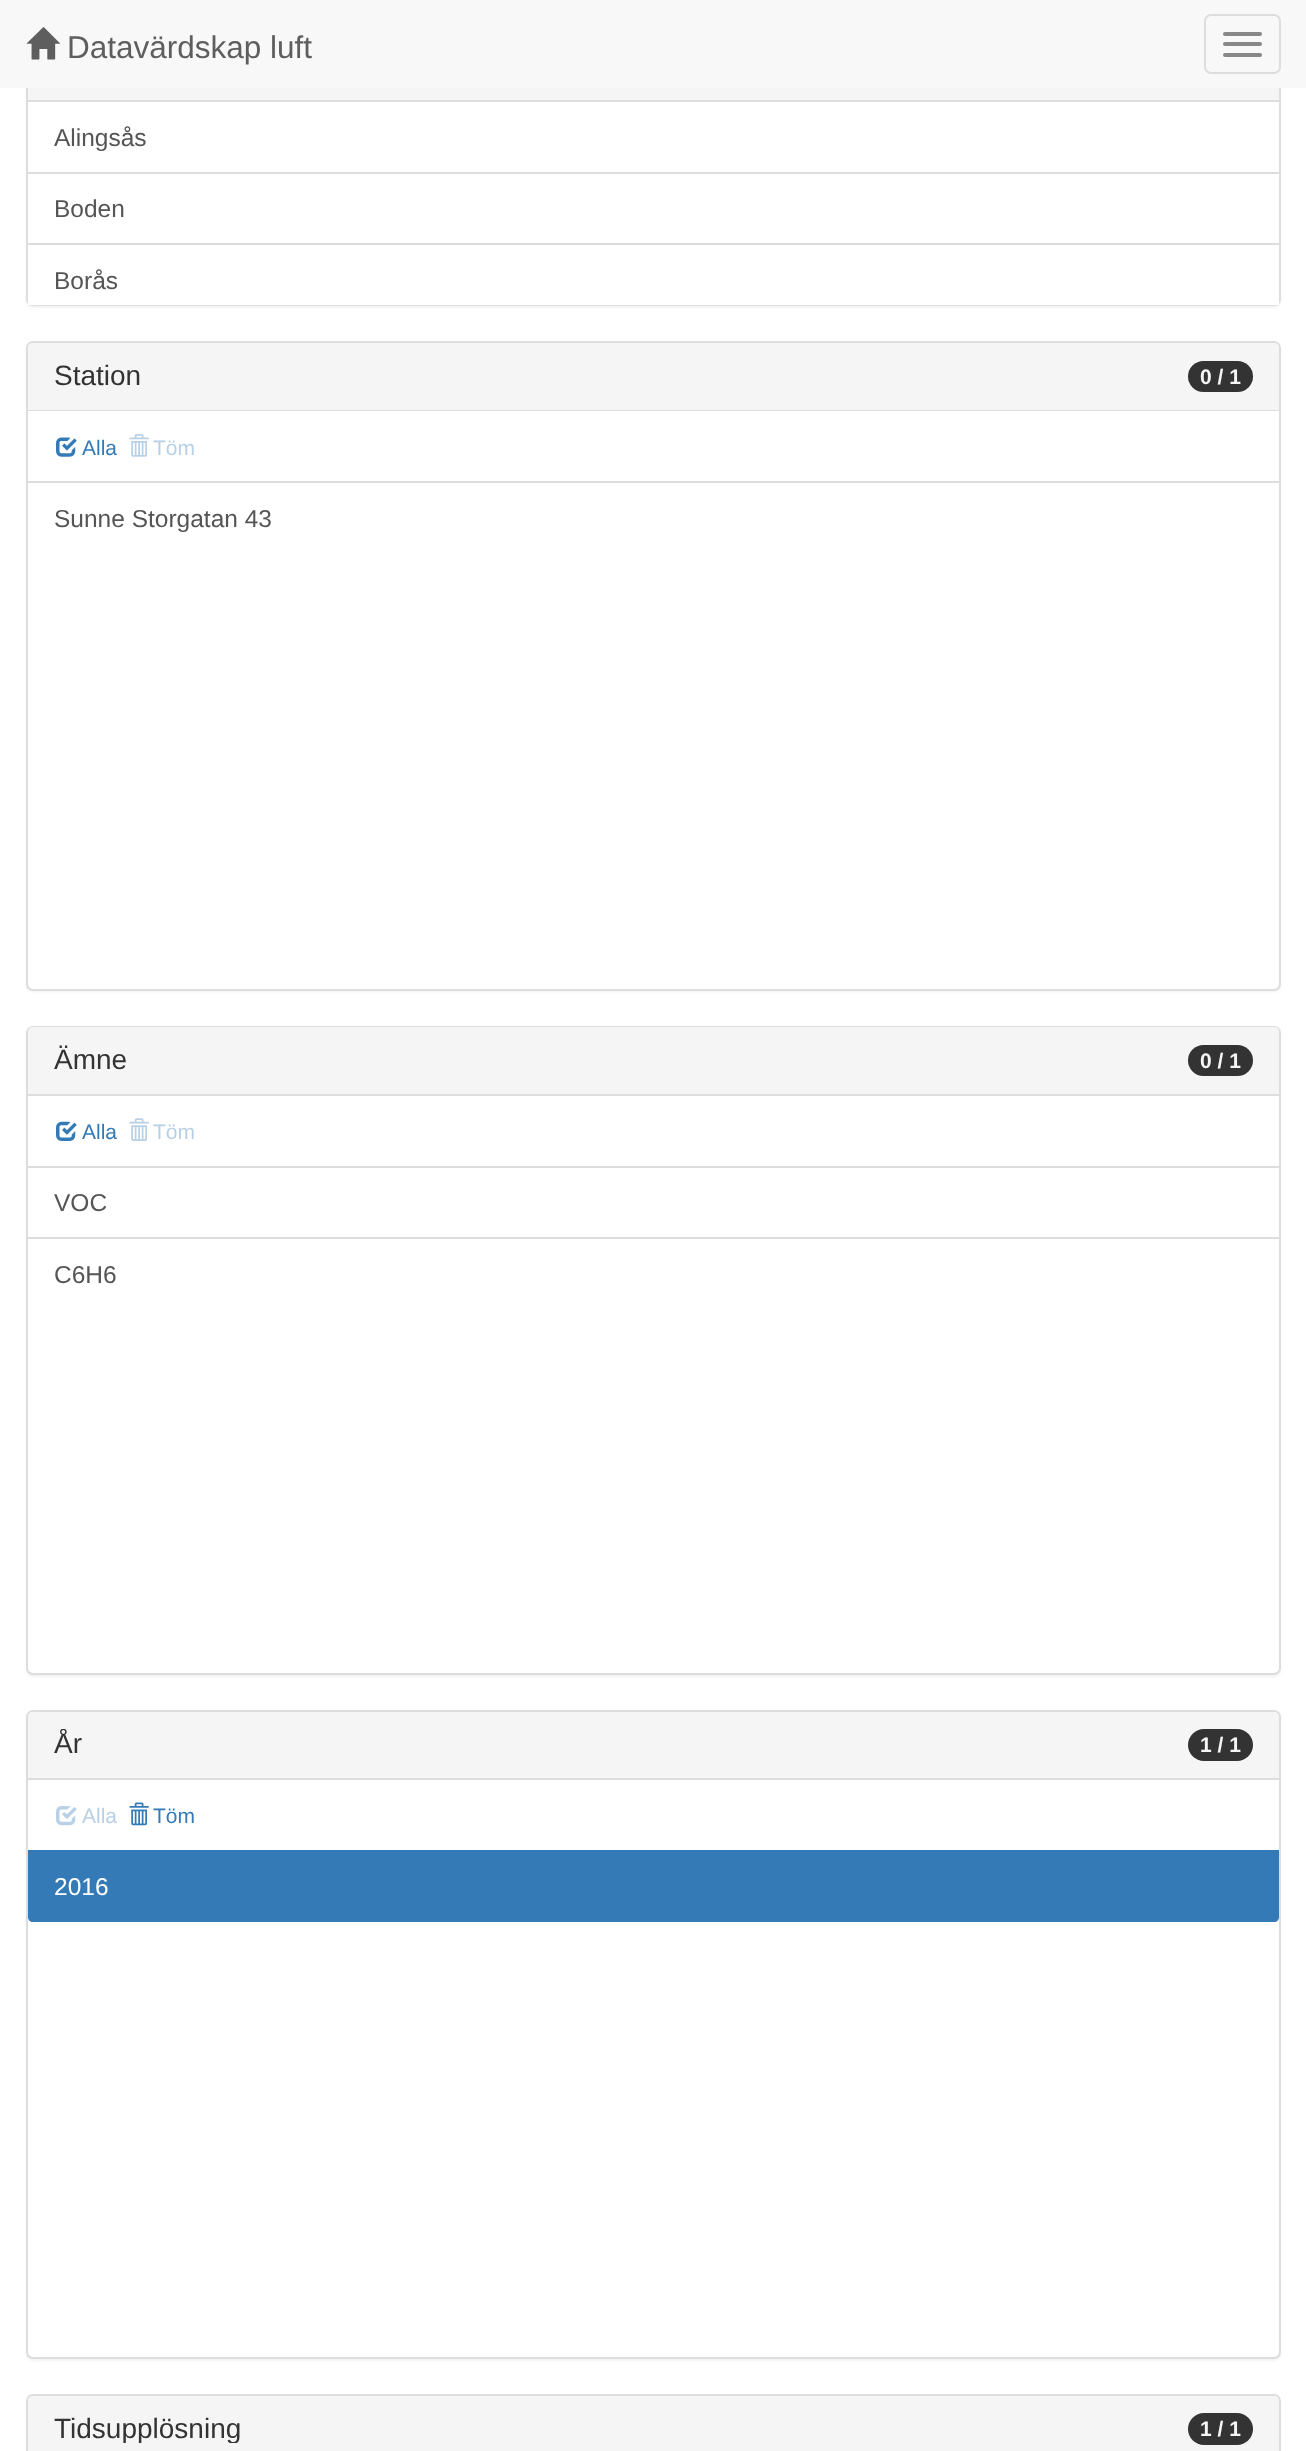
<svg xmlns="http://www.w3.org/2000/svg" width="1306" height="2451">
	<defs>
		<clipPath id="clip1"><rect x="54" y="1729" width="1134" height="32" /></clipPath>
		<clipPath id="clip2"><rect x="54" y="2413" width="1134" height="30" /></clipPath>
	</defs>
	<rect width="100%" height="100%" fill="#FFFFFF" />
	<rect x="26" y="35" width="1255" height="273" rx="7" fill="#000000" fill-opacity="0.05" filter="blur(1px)" />
	<rect x="27" y="34" width="1253" height="271" rx="6" fill="#FFFFFF" stroke="#DDDDDD" stroke-width="2" />
	<rect x="0" y="0" width="1306" height="88" fill="#F8F8F8" />
	<image x="26" y="27" width="34" height="33" href="assets/img1.png" />
	<text x="67" y="58" font-family="Liberation Sans" font-size="31.5" fill="#5E5E5E">Datavärdskap luft</text>
	<rect x="1205" y="15" width="75" height="58" rx="6" fill="none" stroke="#DDDDDD" stroke-width="2" />
	<rect x="1223" y="32" width="39" height="4" rx="2" fill="#888888" />
	<rect x="1223" y="42" width="39" height="4" rx="2" fill="#888888" />
	<rect x="1223" y="53" width="39" height="4" rx="2" fill="#888888" />
	<rect x="28" y="88" width="1251" height="12" fill="#F5F5F5" />
	<rect x="28" y="100" width="1251" height="2" fill="#DDDDDD" />
	<text x="54" y="146" font-family="Liberation Sans" font-size="24.5" fill="#555555">Alingsås</text>
	<rect x="28" y="172" width="1251" height="2" fill="#DDDDDD" />
	<rect x="28" y="243" width="1251" height="2" fill="#DDDDDD" />
	<text x="54" y="217" font-family="Liberation Sans" font-size="24.5" fill="#555555">Boden</text>
	<rect x="28" y="300" width="1251" height="5" fill="#FFFFFF" />
	<text x="54" y="289" font-family="Liberation Sans" font-size="24.5" fill="#555555">Borås</text>
	<rect x="26" y="343" width="1255" height="649" rx="7" fill="#000000" fill-opacity="0.05" filter="blur(1px)" />
	<rect x="27" y="342" width="1253" height="648" rx="6" fill="#FFFFFF" stroke="#DDDDDD" stroke-width="2" />
	<path d="M33 343H1274C1277 343 1279 345 1279 348V411H28V348C28 345 30 343 33 343Z" fill="#F5F5F5" />
	<rect x="28" y="410" width="1251" height="1" fill="#DDDDDD" />
	<text x="54" y="385" font-family="Liberation Sans" font-size="28" fill="#333333">Station</text>
	<rect x="1188" y="361" width="65" height="31" rx="15.5" fill="#333333" />
	<text x="1200" y="384" font-family="Liberation Sans" font-size="21" font-weight="700" fill="#F5F5F5">0 / 1</text>
	<image x="56" y="437" width="21" height="20" href="assets/img2.png" />
	<text x="82" y="455" font-family="Liberation Sans" font-size="21" fill="#337AB7">Alla</text>
	<image x="129" y="434" width="20" height="23" href="assets/img3.png" />
	<text x="153" y="455" font-family="Liberation Sans" font-size="21" fill="#B8D0E6">Töm</text>
	<rect x="28" y="481" width="1251" height="2" fill="#DDDDDD" />
	<text x="54" y="527" font-family="Liberation Sans" font-size="24.5" fill="#555555">Sunne Storgatan 43</text>
	<rect x="26" y="1027" width="1255" height="650" rx="7" fill="#000000" fill-opacity="0.05" filter="blur(1px)" />
	<rect x="27" y="1027" width="1253" height="647" rx="6" fill="#FFFFFF" stroke="#DDDDDD" stroke-width="2" />
	<path d="M33 1027H1274C1277 1027 1279 1029 1279 1032V1096H28V1032C28 1029 30 1027 33 1027Z" fill="#F5F5F5" />
	<rect x="28" y="1094" width="1251" height="2" fill="#DDDDDD" />
	<text x="54" y="1069" font-family="Liberation Sans" font-size="28" fill="#333333">Ämne</text>
	<rect x="1188" y="1045" width="65" height="31" rx="15.5" fill="#333333" />
	<text x="1200" y="1068" font-family="Liberation Sans" font-size="21" font-weight="700" fill="#F5F5F5">0 / 1</text>
	<image x="56" y="1121" width="21" height="20" href="assets/img4.png" />
	<text x="82" y="1139" font-family="Liberation Sans" font-size="21" fill="#337AB7">Alla</text>
	<image x="129" y="1118" width="20" height="23" href="assets/img5.png" />
	<text x="153" y="1139" font-family="Liberation Sans" font-size="21" fill="#B8D0E6">Töm</text>
	<rect x="28" y="1166" width="1251" height="2" fill="#DDDDDD" />
	<text x="54" y="1211" font-family="Liberation Sans" font-size="24.5" fill="#555555">VOC</text>
	<rect x="28" y="1237" width="1251" height="2" fill="#DDDDDD" />
	<text x="54" y="1283" font-family="Liberation Sans" font-size="24.5" fill="#555555">C6H6</text>
	<rect x="26" y="1712" width="1255" height="649" rx="7" fill="#000000" fill-opacity="0.05" filter="blur(1px)" />
	<rect x="27" y="1711" width="1253" height="647" rx="6" fill="#FFFFFF" stroke="#DDDDDD" stroke-width="2" />
	<path d="M33 1712H1274C1277 1712 1279 1714 1279 1717V1780H28V1717C28 1714 30 1712 33 1712Z" fill="#F5F5F5" />
	<rect x="28" y="1778" width="1251" height="2" fill="#DDDDDD" />
	<g clip-path="url(#clip1)">
		<text x="54" y="1753" font-family="Liberation Sans" font-size="28" fill="#333333">År</text>
	</g>
	<rect x="1188" y="1729" width="65" height="32" rx="16" fill="#333333" />
	<text x="1200" y="1752" font-family="Liberation Sans" font-size="21" font-weight="700" fill="#F5F5F5">1 / 1</text>
	<image x="56" y="1806" width="21" height="20" href="assets/img6.png" />
	<text x="82" y="1823" font-family="Liberation Sans" font-size="21" fill="#B8D0E6">Alla</text>
	<image x="129" y="1802" width="20" height="24" href="assets/img7.png" />
	<text x="153" y="1823" font-family="Liberation Sans" font-size="21" fill="#337AB7">Töm</text>
	<path d="M28 1850H1279V1917C1279 1920 1277 1922 1274 1922H33C30 1922 28 1920 28 1917Z" fill="#337AB7" />
	<text x="54" y="1895" font-family="Liberation Sans" font-size="24.5" fill="#FFFFFF">2016</text>
	<rect x="27" y="2395" width="1253" height="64" rx="6" fill="none" stroke="#DDDDDD" stroke-width="2" />
	<path d="M33 2396H1274C1277 2396 1279 2398 1279 2401V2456H28V2401C28 2398 30 2396 33 2396Z" fill="#F5F5F5" />
	<g clip-path="url(#clip2)">
		<text x="54" y="2438" font-family="Liberation Sans" font-size="28" fill="#333333">Tidsupplösning</text>
	</g>
	<rect x="1188" y="2413" width="65" height="32" rx="16" fill="#333333" />
	<text x="1200" y="2436" font-family="Liberation Sans" font-size="21" font-weight="700" fill="#F5F5F5">1 / 1</text>
</svg>
